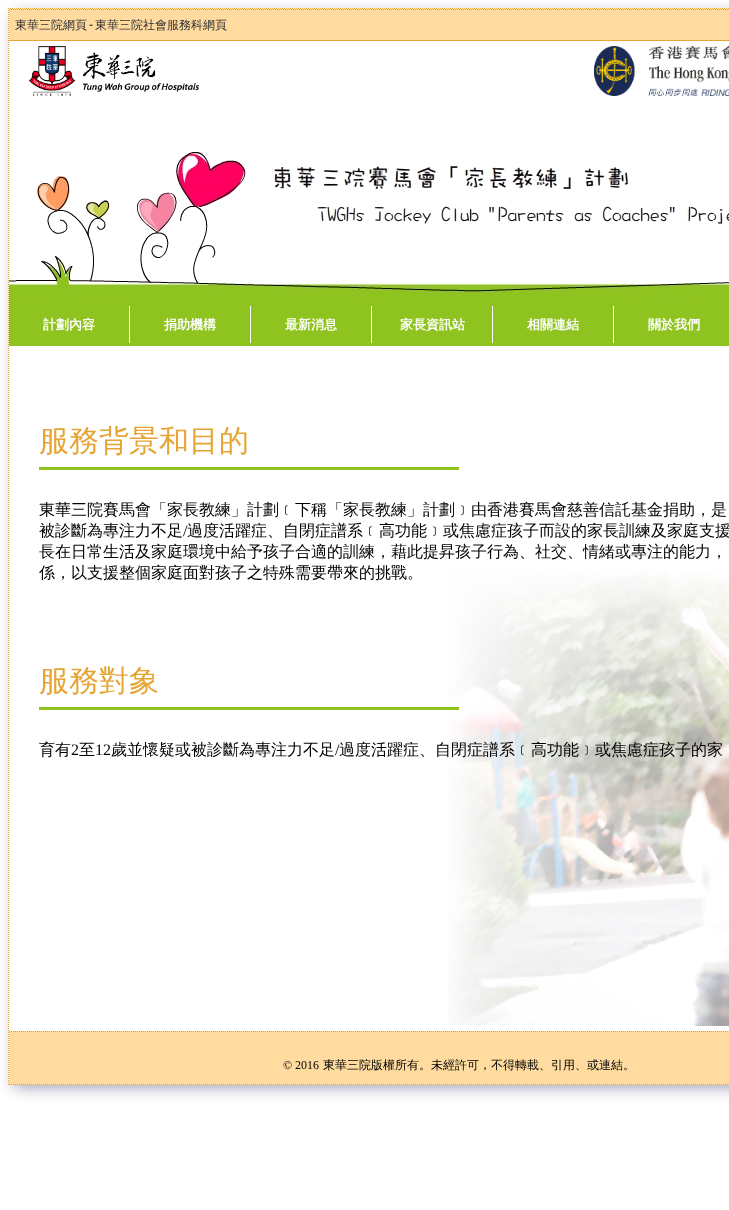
<svg xmlns="http://www.w3.org/2000/svg" width="729" height="1210">
	<defs>
		<clipPath id="clip1"><path d="M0 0H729V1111H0ZM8 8H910V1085H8Z" clip-rule="evenodd" /></clipPath>
	</defs>
	<rect width="100%" height="100%" fill="#FFFFFF" />
	<g clip-path="url(#clip1)">
		<rect x="14" y="14" width="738" height="1073" fill="#333366" fill-opacity="0.5" filter="blur(7.5px)" />
	</g>
	<path d="M8 8.5H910" fill="none" stroke="#E5A434" stroke-dasharray="1 1" />
	<path d="M8.5 8V1085" fill="none" stroke="#E5A434" stroke-dasharray="1 1" />
	<rect x="9" y="9" width="720" height="31" fill="#FFDB9F" />
	<path d="M9 9.5H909" fill="none" stroke="#D0A152" stroke-dasharray="1 1" />
	<rect x="9" y="40" width="720" height="1" fill="#E5A434" />
	<text x="15" y="29" font-family="WenQuanYi Zen Hei" font-size="12" font-weight="500" fill="#333333">東華三院網頁</text>
	<text x="89" y="28" font-family="Liberation Serif" font-size="12" fill="#000000">-</text>
	<text x="95" y="29" font-family="WenQuanYi Zen Hei" font-size="12" font-weight="500" fill="#333333">東華三院社會服務科網頁</text>
	<image x="29" y="46" width="170" height="50" href="assets/img1.png" />
	<image x="594" y="46" width="135" height="50" href="assets/img2.png" />
	<image x="9" y="152" width="720" height="154" href="assets/img3.png" />
	<rect x="9" y="306" width="720" height="40" fill="#8FC31F" />
	<rect x="129" y="306" width="1" height="37" fill="#FFFFFF" />
	<text x="43" y="329" font-family="WenQuanYi Zen Hei" font-size="13" font-weight="700" fill="#FFFFFF">計劃內容</text>
	<rect x="250" y="306" width="1" height="37" fill="#FFFFFF" />
	<text x="164" y="329" font-family="WenQuanYi Zen Hei" font-size="13" font-weight="700" fill="#FFFFFF">捐助機構</text>
	<rect x="371" y="306" width="1" height="37" fill="#FFFFFF" />
	<text x="285" y="329" font-family="WenQuanYi Zen Hei" font-size="13" font-weight="700" fill="#FFFFFF">最新消息</text>
	<rect x="492" y="306" width="1" height="37" fill="#FFFFFF" />
	<text x="400" y="329" font-family="WenQuanYi Zen Hei" font-size="13" font-weight="700" fill="#FFFFFF">家長資訊站</text>
	<rect x="613" y="306" width="1" height="37" fill="#FFFFFF" />
	<g font-family="WenQuanYi Zen Hei" font-size="13" font-weight="700" fill="#FFFFFF">
		<text x="527" y="329">相關連結</text>
		<text x="648" y="329">關於我們</text>
	</g>
	<image x="448" y="569" width="281" height="457" href="assets/img4.png" />
	<rect x="39" y="467" width="420" height="3" fill="#8DC21F" />
	<text x="39" y="451" font-family="WenQuanYi Zen Hei" font-size="30" font-weight="500" fill="#E5A434">服務背景和目的</text>
	<g font-family="WenQuanYi Zen Hei" font-size="16" font-weight="500" fill="#000000">
		<text x="39" y="515">東華三院賽馬會「家長教練」計劃﹝下稱「家長教練」計劃﹞由香港賽馬會慈善信託基金捐助，是</text>
		<text x="39" y="536">被診斷為專注力不足</text>
	</g>
	<text x="183" y="536" font-family="Liberation Serif" font-size="16" fill="#000000">/</text>
	<g font-family="WenQuanYi Zen Hei" font-size="16" font-weight="500" fill="#000000">
		<text x="187" y="536">過度活躍症、自閉症譜系﹝高功能﹞或焦慮症孩子而設的家長訓練及家庭支援</text>
		<text x="39" y="557">長在日常生活及家庭環境中給予孩子合適的訓練，藉此提昇孩子行為、社交、情緒或專注的能力，</text>
		<text x="39" y="578">係，以支援整個家庭面對孩子之特殊需要帶來的挑戰。</text>
	</g>
	<rect x="39" y="707" width="420" height="3" fill="#8DC21F" />
	<text x="39" y="691" font-family="WenQuanYi Zen Hei" font-size="30" font-weight="500" fill="#E5A434">服務對象</text>
	<text x="39" y="755" font-family="WenQuanYi Zen Hei" font-size="16" font-weight="500" fill="#000000">育有</text>
	<text x="71" y="755" font-family="Liberation Serif" font-size="16" fill="#000000">2</text>
	<text x="79" y="755" font-family="WenQuanYi Zen Hei" font-size="16" font-weight="500" fill="#000000">至</text>
	<text x="95" y="755" font-family="Liberation Serif" font-size="16" fill="#000000">12</text>
	<text x="111" y="755" font-family="WenQuanYi Zen Hei" font-size="16" font-weight="500" fill="#000000">歲並懷疑或被診斷為專注力不足</text>
	<text x="335" y="755" font-family="Liberation Serif" font-size="16" fill="#000000">/</text>
	<text x="339" y="755" font-family="WenQuanYi Zen Hei" font-size="16" font-weight="500" fill="#000000">過度活躍症、自閉症譜系﹝高功能﹞或焦慮症孩子的家</text>
	<rect x="9" y="1031" width="720" height="54" fill="#FFDB9F" />
	<path d="M9 1031.5H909" fill="none" stroke="#D0A152" stroke-dasharray="1 1" />
	<path d="M9 1084.5H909" fill="none" stroke="#D0A152" stroke-dasharray="1 1" />
	<text x="283" y="1069" font-family="Liberation Serif" font-size="12" fill="#000000">© 2016</text>
	<text x="323" y="1069" font-family="WenQuanYi Zen Hei" font-size="12" font-weight="500" fill="#000000">東華三院版權所有。未經許可，不得轉載、引用、或連結。</text>
</svg>
